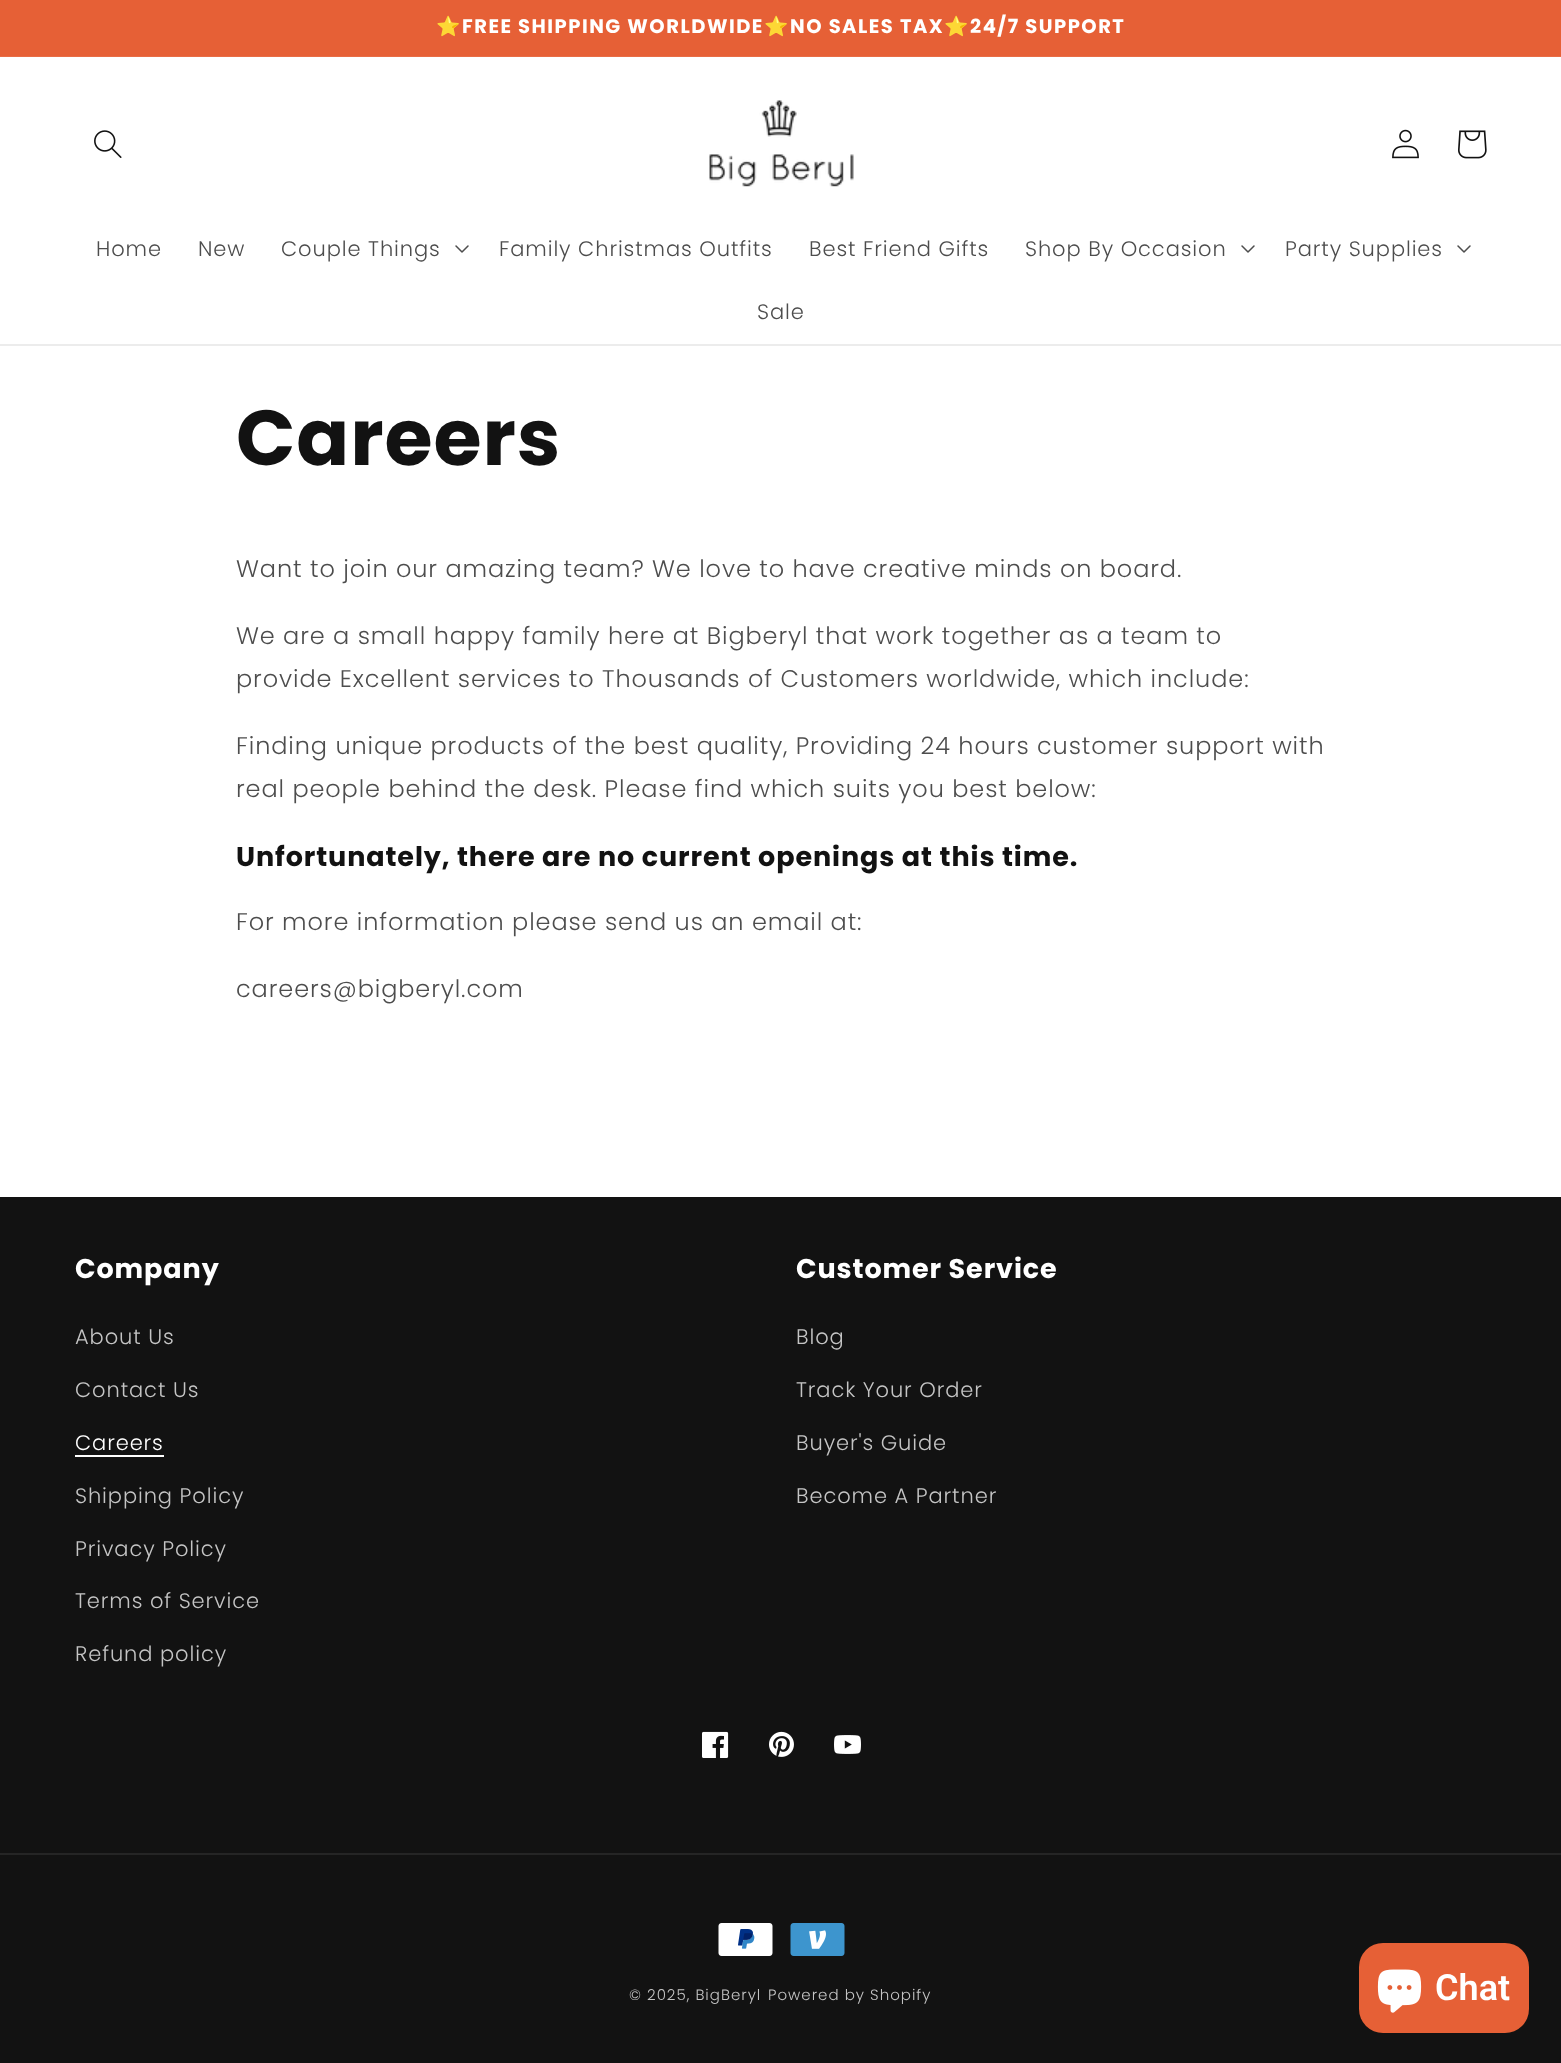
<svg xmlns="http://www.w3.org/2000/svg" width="1561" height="2063">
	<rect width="100%" height="100%" fill="#FFFFFF" />
	<rect x="0" y="0" width="1561" height="56" fill="#E66036" />
	<rect x="0" y="56" width="1561" height="1" fill="#E86D46" />
	<text x="436" y="33" font-family="Noto Color Emoji" font-size="19.5" font-weight="700" letter-spacing="1.5" fill="#FFFFFF">⭐</text>
	<text x="462" y="33" font-family="Poppins" font-size="19.5" font-weight="700" letter-spacing="1.5" fill="#FFFFFF">FREE SHIPPING WORLDWIDE</text>
	<text x="764" y="33" font-family="Noto Color Emoji" font-size="19.5" font-weight="700" letter-spacing="1.5" fill="#FFFFFF">⭐</text>
	<text x="790" y="33" font-family="Poppins" font-size="19.5" font-weight="700" letter-spacing="1.5" fill="#FFFFFF">NO SALES TAX</text>
	<text x="944" y="33" font-family="Noto Color Emoji" font-size="19.5" font-weight="700" letter-spacing="1.5" fill="#FFFFFF">⭐</text>
	<text x="970" y="33" font-family="Poppins" font-size="19.5" font-weight="700" letter-spacing="1.5" fill="#FFFFFF">24/7 SUPPORT</text>
	<rect x="0" y="344" width="1561" height="2" fill="#ECECEC" />
	<image x="94" y="130" width="28" height="28" href="assets/img1.png" />
	<image x="709" y="100" width="145" height="87" href="assets/img2.png" />
	<image x="1392" y="129" width="27" height="30" href="assets/img3.png" />
	<image x="1458" y="130" width="29" height="29" href="assets/img4.png" />
	<g font-family="Poppins" font-size="21" font-weight="300" letter-spacing="0.9" fill="#4D4D4D">
		<text x="96" y="256">Home</text>
		<text x="198" y="256">New</text>
		<text x="281" y="256">Couple Things</text>
	</g>
	<image x="455" y="245" width="14" height="8" href="assets/img5.png" />
	<g font-family="Poppins" font-size="21" font-weight="300" letter-spacing="0.9" fill="#4D4D4D">
		<text x="499" y="256">Family Christmas Outfits</text>
		<text x="809" y="256">Best Friend Gifts</text>
		<text x="1025" y="256">Shop By Occasion</text>
	</g>
	<image x="1241" y="245" width="14" height="8" href="assets/img5.png" />
	<text x="1285" y="256" font-family="Poppins" font-size="21" font-weight="300" letter-spacing="0.9" fill="#4D4D4D">Party Supplies</text>
	<image x="1457" y="245" width="14" height="8" href="assets/img5.png" />
	<text x="757" y="319" font-family="Poppins" font-size="21" font-weight="300" letter-spacing="0.9" fill="#4D4D4D">Sale</text>
	<text x="236" y="465" font-family="Poppins" font-size="78" font-weight="700" letter-spacing="0.9" fill="#121212">Careers</text>
	<g font-family="Poppins" font-size="24" font-weight="300" letter-spacing="0.9" fill="#4D4D4D">
		<text x="236" y="577">Want to join our amazing team? We love to have creative minds on board.</text>
		<text x="236" y="644">We are a small happy family here at Bigberyl that work together as a team to</text>
		<text x="236" y="687">provide Excellent services to Thousands of Customers worldwide, which include:</text>
		<text x="236" y="754">Finding unique products of the best quality, Providing 24 hours customer support with</text>
		<text x="236" y="797">real people behind the desk. Please find which suits you best below:</text>
	</g>
	<text x="236" y="866" font-family="Poppins" font-size="27" font-weight="700" letter-spacing="0.9" fill="#121212">Unfortunately, there are no current openings at this time.</text>
	<g font-family="Poppins" font-size="24" font-weight="300" letter-spacing="0.9" fill="#4D4D4D">
		<text x="236" y="930">For more information please send us an email at:</text>
		<text x="236" y="997">careers@bigberyl.com</text>
	</g>
	<rect x="0" y="1197" width="1561" height="866" fill="#121212" />
	<text x="75" y="1278" font-family="Poppins" font-size="27" font-weight="700" letter-spacing="0.9" fill="#FFFFFF">Company</text>
	<g font-family="Poppins" font-size="21" font-weight="300" letter-spacing="0.9" fill="#C4C4C4">
		<text x="75" y="1344">About Us</text>
		<text x="75" y="1397">Contact Us</text>
	</g>
	<text x="75" y="1450" font-family="Poppins" font-size="21" font-weight="300" letter-spacing="0.9" fill="#FFFFFF">Careers</text>
	<rect x="75" y="1455" width="89" height="2" fill="#FFFFFF" />
	<g font-family="Poppins" font-size="21" font-weight="300" letter-spacing="0.9" fill="#C4C4C4">
		<text x="75" y="1503">Shipping Policy</text>
		<text x="75" y="1556">Privacy Policy</text>
		<text x="75" y="1608">Terms of Service</text>
		<text x="75" y="1661">Refund policy</text>
	</g>
	<text x="796" y="1278" font-family="Poppins" font-size="27" font-weight="700" letter-spacing="0.9" fill="#FFFFFF">Customer Service</text>
	<g font-family="Poppins" font-size="21" font-weight="300" letter-spacing="0.9" fill="#C4C4C4">
		<text x="796" y="1344">Blog</text>
		<text x="796" y="1397">Track Your Order</text>
		<text x="796" y="1450">Buyer's Guide</text>
		<text x="796" y="1503">Become A Partner</text>
	</g>
	<image x="702" y="1731" width="27" height="27" href="assets/img6.png" />
	<image x="769" y="1731" width="25" height="26" href="assets/img7.png" />
	<image x="834" y="1735" width="27" height="19" href="assets/img8.png" />
	<rect x="0" y="1853" width="1561" height="2" fill="#252525" />
	<image x="718" y="1923" width="55" height="33" href="assets/img9.png" />
	<image x="790" y="1923" width="55" height="33" href="assets/img10.png" />
	<g font-family="Poppins" font-size="15" font-weight="300" letter-spacing="1" fill="#C4C4C4">
		<text x="629" y="2000">© 2025, BigBeryl</text>
		<text x="768" y="2000">Powered by Shopify</text>
	</g>
	<rect x="1359" y="1943" width="170" height="90" rx="24" fill="#E66036" />
	<image x="1377" y="1969" width="45" height="44" href="assets/img11.png" />
	<text x="1435" y="2000" font-family="Roboto" font-size="36" font-weight="600" fill="#FFFFFF">Chat</text>
</svg>
